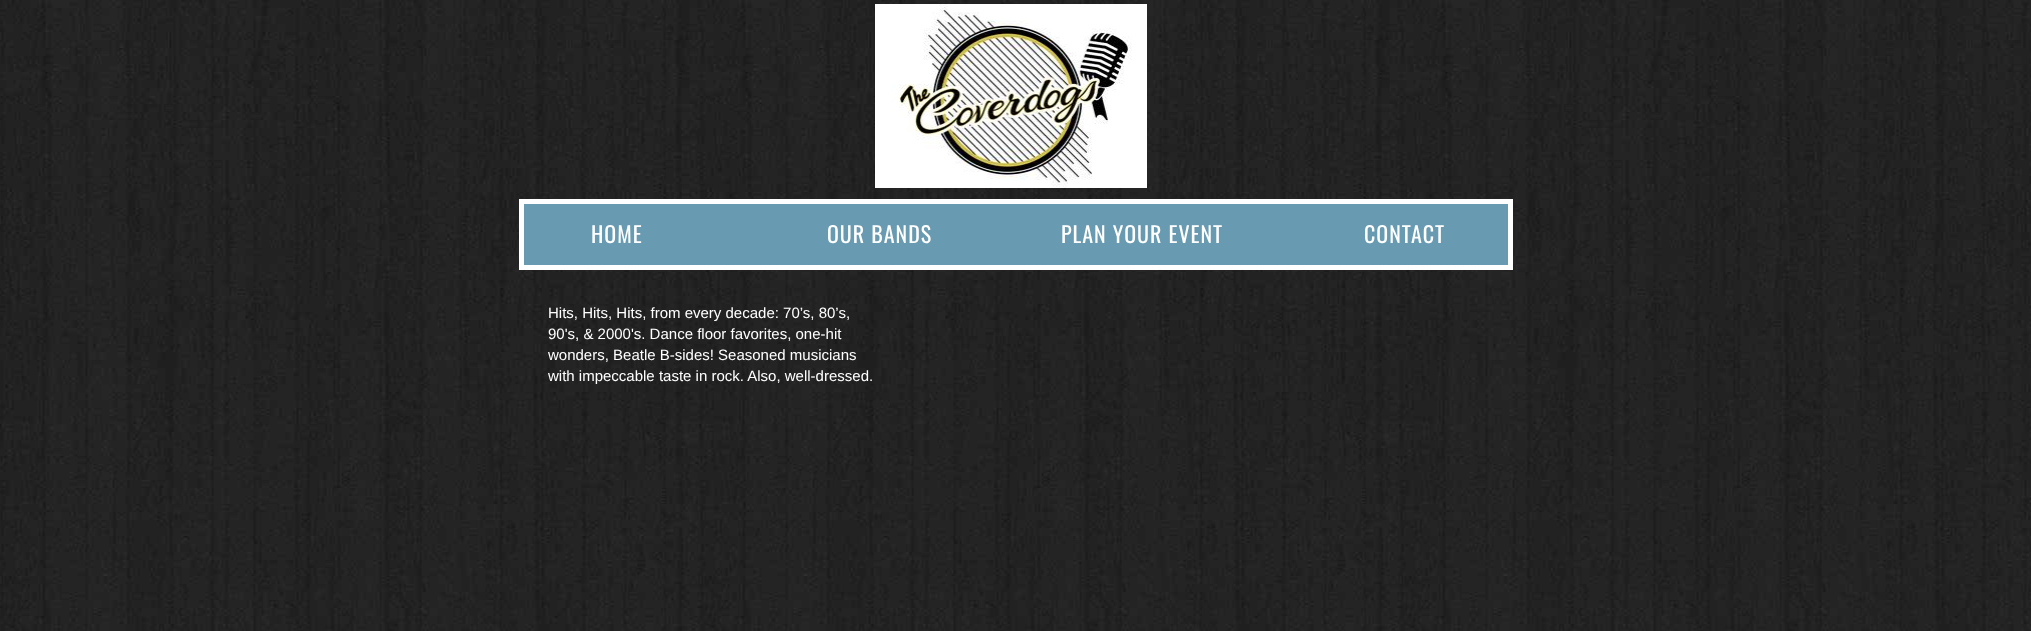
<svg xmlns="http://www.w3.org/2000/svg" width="2031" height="631">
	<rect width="100%" height="100%" fill="#FFFFFF" />
	<image x="0" y="0" width="2031" height="631" href="assets/img1.png" />
	<image x="875" y="4" width="272" height="184" href="assets/img2.png" />
	<rect x="521.5" y="201.5" width="989" height="66" fill="#689BB1" stroke="#FFFFFF" stroke-width="5" />
	<g font-family="Oswald" font-size="22" letter-spacing="1" fill="#FFFFFF">
		<text x="591" y="243">HOME</text>
		<text x="827" y="243">OUR BANDS</text>
		<text x="1061" y="243">PLAN YOUR EVENT</text>
		<text x="1364" y="243">CONTACT</text>
	</g>
	<g font-family="Liberation Sans" font-size="15" fill="#FFFFFF">
		<text x="548" y="318">Hits, Hits, Hits, from every decade: 70’s, 80’s,</text>
		<text x="548" y="339">90's, &amp; 2000's. Dance floor favorites, one-hit</text>
		<text x="548" y="360">wonders, Beatle B-sides! Seasoned musicians</text>
		<text x="548" y="381">with impeccable taste in rock. Also, well-dressed.</text>
	</g>
</svg>
